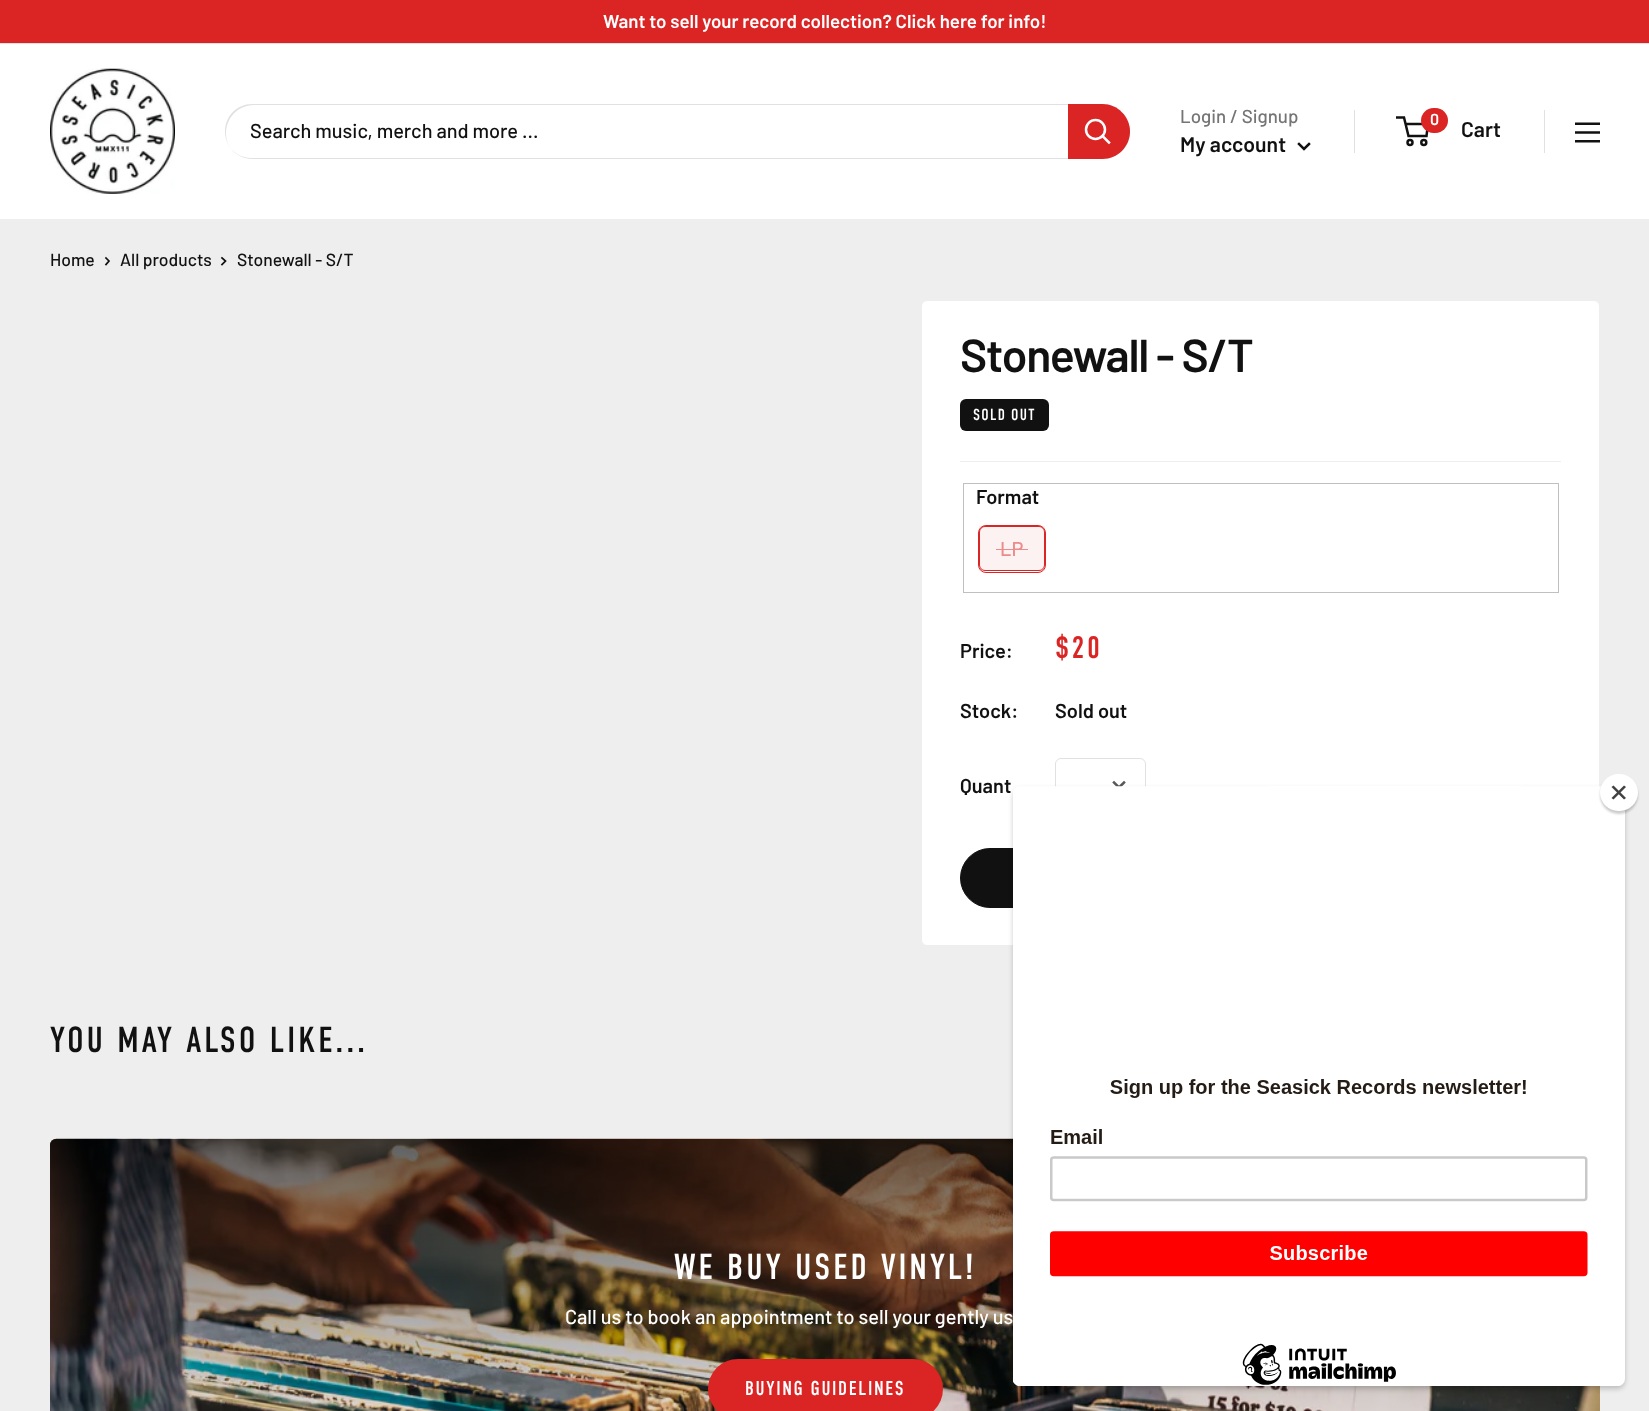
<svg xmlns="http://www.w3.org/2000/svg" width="1649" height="1411">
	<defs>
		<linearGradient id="g1" gradientUnits="userSpaceOnUse" x1="825" y1="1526" x2="825" y2="1139"><stop offset="0.15" stop-color="#000000" stop-opacity="0" /><stop offset="1" stop-color="#000000" stop-opacity="0.6" /></linearGradient>
	</defs>
	<rect width="100%" height="100%" fill="#EEEEEE" />
	<rect x="0" y="0" width="1649" height="43" fill="#DB2424" />
	<rect x="0" y="43" width="1649" height="1" fill="#E1E1E1" />
	<text x="603" y="28" font-family="Barlow" font-size="18.75" font-weight="600" fill="#FFFFFF">Want to sell your record collection? Click here for info!</text>
	<rect x="0" y="44" width="1649" height="175" fill="#FFFFFF" />
	<image x="50" y="68" width="125" height="126" href="assets/img1.png" />
	<path d="M231 149C236 155 244 159 252 159H1102C1118 159 1130 147 1130 132C1130 125 1128 119 1124 114C1127 119 1129 124 1129 130C1129 145 1116 158 1101 158H251C243 158 236 154 231 149Z" fill="#E1E1E1" />
	<path d="M254 105H1104C1110 105 1115 107 1119 109C1114 106 1109 104 1102 104H252C237 104 225 116 225 132C225 141 230 149 236 154C216 138 228 105 254 105Z" fill="#E1E1E1" />
	<text x="250" y="138" font-family="Barlow" font-size="20" font-weight="500" fill="#111111">Search music, merch and more ...</text>
	<path d="M1068 104H1102.5C1117.5 104 1130 116.5 1130 131.5C1130 146.5 1117.5 159 1102.5 159H1068Z" fill="#DB2424" />
	<path d="M1109 142.5L1102.5 136" fill="none" stroke="#FFFFFF" stroke-width="2.5" stroke-linecap="square" />
	<circle cx="1095.5" cy="129.5" r="9.5" fill="none" stroke="#FFFFFF" stroke-width="2.5" />
	<text x="1180" y="123" font-family="Barlow" font-size="18.75" font-weight="500" fill="#757575">Login / Signup</text>
	<rect x="1354" y="110" width="1" height="43" fill="#E1E1E1" />
	<text x="1180" y="152" font-family="Barlow" font-size="21.25" font-weight="600" fill="#111111">My account</text>
	<path d="M1309 144L1304 149L1299 144" fill="none" stroke="#111111" stroke-width="2.5" stroke-linecap="square" />
	<circle cx="1410" cy="142.5" r="2.5" fill="none" stroke="#111111" stroke-width="2.5" />
	<circle cx="1423.8" cy="142.5" r="2.5" fill="none" stroke="#111111" stroke-width="2.5" />
	<path d="M1405.5 124H1428L1426.5 136H1408.5L1404 117.5H1396" fill="none" stroke="#111111" stroke-width="2.5" />
	<rect x="1421" y="108" width="27" height="25" rx="12.5" fill="#DB2424" />
	<text x="1430" y="125" font-family="Barlow" font-size="16" font-weight="600" fill="#FFFFFF">0</text>
	<text x="1461" y="137" font-family="Barlow" font-size="21.25" font-weight="600" fill="#111111">Cart</text>
	<rect x="1544" y="110" width="1" height="43" fill="#E1E1E1" />
	<image x="1575" y="122" width="25" height="21" href="assets/img2.png" />
	<text x="50" y="266" font-family="Barlow" font-size="17.5" font-weight="500" fill="#111111">Home</text>
	<path d="M106 258L109 261L106 264.5" fill="none" stroke="#111111" stroke-width="1.7" stroke-linecap="square" />
	<text x="120" y="266" font-family="Barlow" font-size="17.5" font-weight="500" fill="#111111">All products</text>
	<path d="M222 258L225.5 261L222 264.5" fill="none" stroke="#111111" stroke-width="1.7" stroke-linecap="square" />
	<text x="237" y="266" font-family="Barlow" font-size="17.5" font-weight="500" fill="#111111">Stonewall - S/T</text>
	<rect x="921.5" y="300.5" width="678" height="645" rx="5.5" fill="#FFFFFF" stroke="#EEEEEE" />
	<text x="960" y="372" font-family="Barlow" font-size="46.25" font-weight="600" letter-spacing="-1.25" fill="#111111">Stonewall - S/T</text>
	<rect x="960" y="399" width="89" height="32" rx="6" fill="#111111" />
	<text x="973" y="420" font-family="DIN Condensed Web" font-size="16" letter-spacing="1.25" fill="#FFFFFF">SOLD OUT</text>
	<rect x="960" y="461" width="601" height="1" fill="#EEEEEE" />
	<rect x="963.5" y="483.5" width="595" height="109" fill="none" stroke="#C0C0C0" />
	<text x="976" y="504" font-family="Barlow" font-size="20" font-weight="600" fill="#111111">Format</text>
	<rect x="978.5" y="525.5" width="67" height="47" rx="7.5" fill="none" stroke="#DB2424" />
	<rect x="979" y="526" width="66" height="45" fill="#DB2424" fill-opacity="0.06" />
	<rect x="979.5" y="526.5" width="65" height="44" rx="5.5" fill="none" stroke="#DB2424" />
	<text x="1000" y="556" font-family="Barlow" font-size="20" font-weight="500" fill="#EC8B8B">LP</text>
	<rect x="996" y="549" width="32" height="1" fill="#EC8B8B" />
	<text x="960" y="658" font-family="Barlow" font-size="20" font-weight="600" fill="#111111">Price:</text>
	<text x="1055" y="658" font-family="DIN Condensed Web" font-size="31" letter-spacing="2.5" fill="#DB2424">$20</text>
	<g font-family="Barlow" font-size="20" font-weight="600" fill="#111111">
		<text x="960" y="718">Stock:</text>
		<text x="1055" y="718">Sold out</text>
		<text x="960" y="793">Quant</text>
	</g>
	<rect x="1055.5" y="758.5" width="90" height="54" rx="5.5" fill="none" stroke="#E1E1E1" />
	<path d="M1124 782.5L1119 787.5L1114 782.5" fill="none" stroke="#585858" stroke-width="2.5" stroke-linecap="square" />
	<rect x="960.5" y="848.5" width="289" height="59" rx="29.5" fill="#111111" stroke="#111111" />
	<text x="50" y="1052" font-family="DIN Condensed Web" font-size="36.25" letter-spacing="2.9" fill="#111111">YOU MAY ALSO LIKE...</text>
	<image x="50" y="1138" width="1550" height="273" href="assets/img3.png" />
	<rect x="50" y="1139" width="1550" height="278" rx="6" fill="url(#g1)" />
	<text x="674" y="1279" font-family="DIN Condensed Web" font-size="36.25" letter-spacing="2.9" fill="#FFFFFF">WE BUY USED VINYL!</text>
	<text x="565" y="1324" font-family="Barlow" font-size="20" font-weight="500" fill="#FFFFFF">Call us to book an appointment to sell your gently us</text>
	<rect x="708" y="1359" width="235" height="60" rx="30" fill="#DB2424" />
	<text x="745" y="1395" font-family="DIN Condensed Web" font-size="20" letter-spacing="1.6" fill="#FFFFFF">BUYING GUIDELINES</text>
	<rect x="1013" y="789" width="612" height="600" rx="8" fill="#000000" fill-opacity="0.2" filter="blur(2.5px)" />
	<image x="1013" y="786" width="612" height="600" href="assets/img4.png" />
	<rect x="1600" y="776" width="38" height="38" rx="19" fill="#000000" fill-opacity="0.2" filter="blur(1px)" />
	<rect x="1600" y="774" width="38" height="37" rx="18.5" fill="#FFFFFF" />
	<path d="M1624 785.5L1626 787L1613.5 799.5L1611.5 798Z" fill="#414141" />
	<path d="M1611.5 787L1613.5 785.5L1626 798L1624 799.5Z" fill="#414141" />
</svg>
